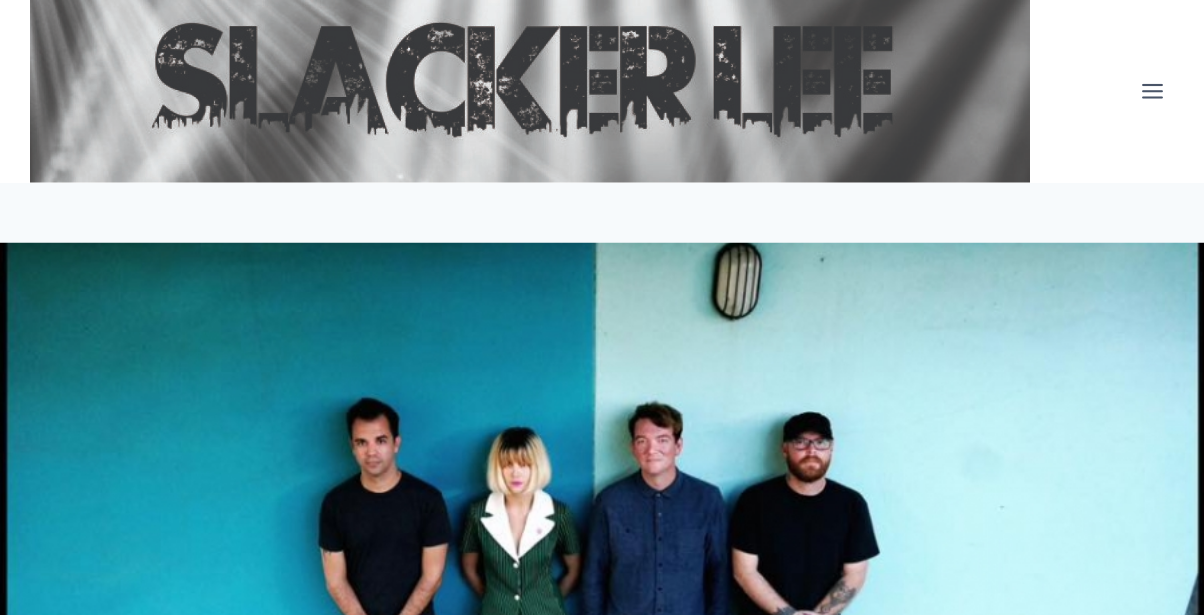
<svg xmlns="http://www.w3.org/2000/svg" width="1204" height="615">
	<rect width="100%" height="100%" fill="#F7FAFC" />
	<rect x="0" y="0" width="1204" height="183" fill="#FFFFFF" />
	<image x="30" y="0" width="1000" height="183" href="assets/img1.png" />
	<image x="1142" y="83" width="21" height="16" href="assets/img2.png" />
	<image x="0" y="242" width="1204" height="373" href="assets/img3.png" />
</svg>
